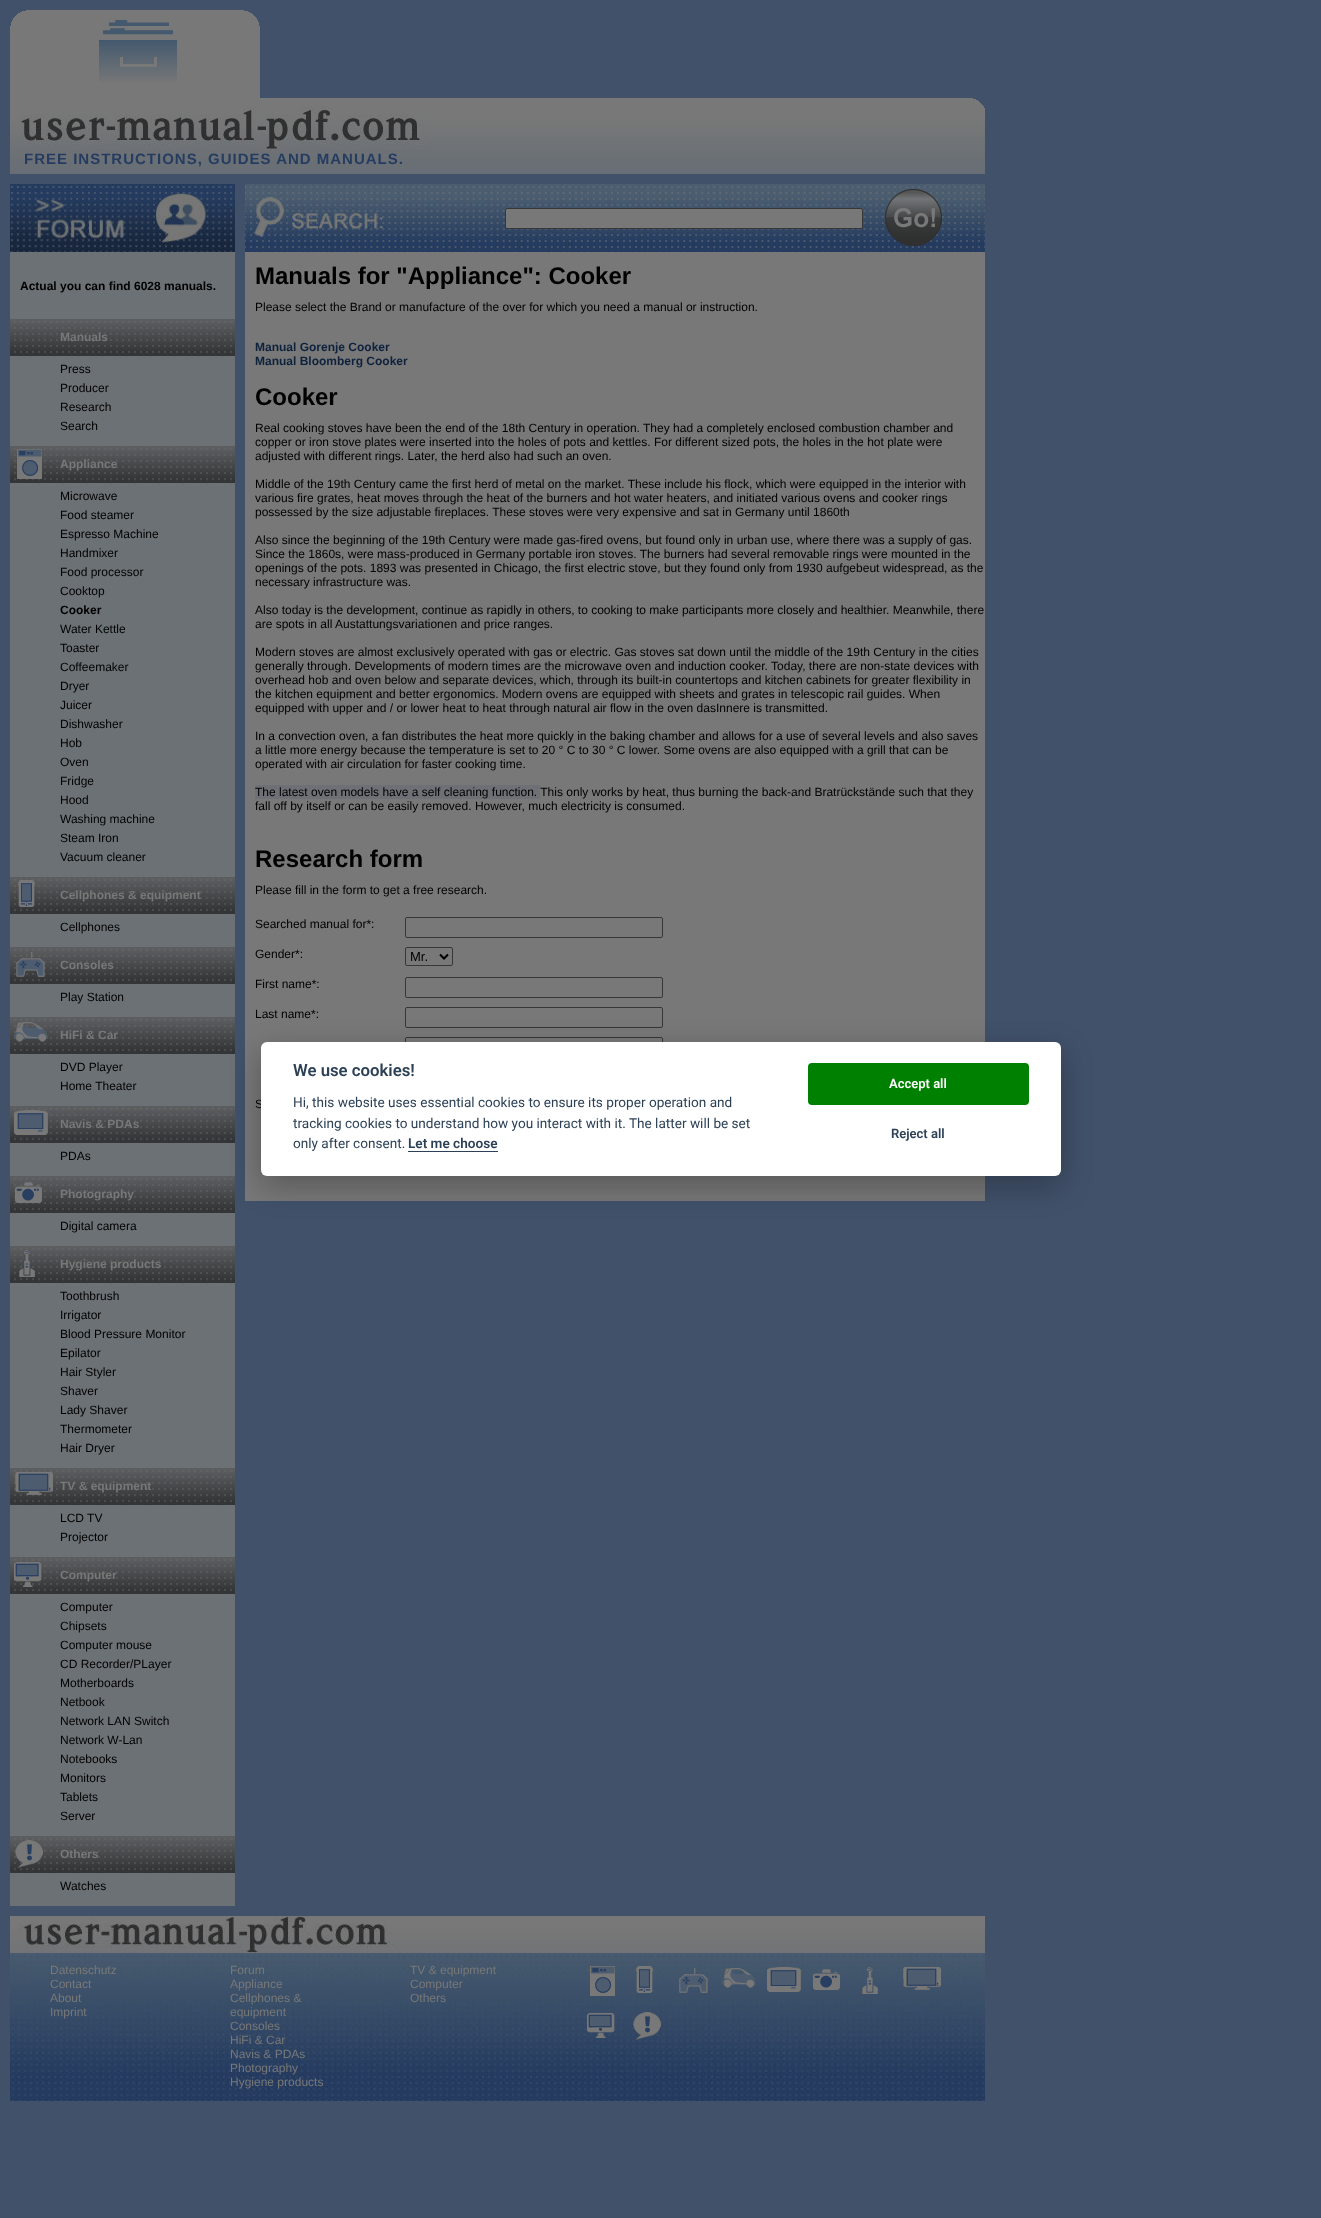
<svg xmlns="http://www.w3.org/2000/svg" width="1321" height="2218">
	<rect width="100%" height="100%" fill="#41516A" />
	<image x="10" y="10" width="250" height="88" href="assets/img1.png" />
	<image x="10" y="98" width="975" height="76" href="assets/img2.png" />
	<image x="18" y="106" width="408" height="45" href="assets/img3.png" />
	<text x="24" y="164" font-family="Liberation Sans" font-size="15" font-weight="700" letter-spacing="1" fill="#253C60">FREE INSTRUCTIONS, GUIDES AND MANUALS.</text>
	<rect x="10" y="252" width="225" height="1654" fill="#6C7176" />
	<image x="10" y="184" width="225" height="68" href="assets/img4.png" />
	<text x="20" y="290" font-family="Liberation Sans" font-size="12" font-weight="700" fill="#000000">Actual you can find 6028 manuals.</text>
	<image x="10" y="319" width="225" height="37" href="assets/img5.png" />
	<text x="60" y="341" font-family="Liberation Sans" font-size="12" font-weight="700" fill="#787878">Manuals</text>
	<g font-family="Liberation Sans" font-size="12" fill="#000000">
		<text x="60" y="373">Press</text>
		<text x="60" y="392">Producer</text>
		<text x="60" y="411">Research</text>
		<text x="60" y="430">Search</text>
	</g>
	<image x="10" y="446" width="225" height="37" href="assets/img5.png" />
	<image x="17" y="449" width="25" height="30" href="assets/img6.png" />
	<text x="60" y="468" font-family="Liberation Sans" font-size="12" font-weight="700" fill="#787878">Appliance</text>
	<g font-family="Liberation Sans" font-size="12" fill="#000000">
		<text x="60" y="500">Microwave</text>
		<text x="60" y="519">Food steamer</text>
		<text x="60" y="538">Espresso Machine</text>
		<text x="60" y="557">Handmixer</text>
		<text x="60" y="576">Food processor</text>
		<text x="60" y="595">Cooktop</text>
	</g>
	<text x="60" y="614" font-family="Liberation Sans" font-size="12" font-weight="700" fill="#000000">Cooker</text>
	<g font-family="Liberation Sans" font-size="12" fill="#000000">
		<text x="60" y="633">Water Kettle</text>
		<text x="60" y="652">Toaster</text>
		<text x="60" y="671">Coffeemaker</text>
		<text x="60" y="690">Dryer</text>
		<text x="60" y="709">Juicer</text>
		<text x="60" y="728">Dishwasher</text>
		<text x="60" y="747">Hob</text>
		<text x="60" y="766">Oven</text>
		<text x="60" y="785">Fridge</text>
		<text x="60" y="804">Hood</text>
		<text x="60" y="823">Washing machine</text>
		<text x="60" y="842">Steam Iron</text>
		<text x="60" y="861">Vacuum cleaner</text>
	</g>
	<image x="10" y="877" width="225" height="37" href="assets/img5.png" />
	<image x="18" y="880" width="17" height="27" href="assets/img7.png" />
	<text x="60" y="899" font-family="Liberation Sans" font-size="12" font-weight="700" fill="#787878">Cellphones &amp; equipment</text>
	<text x="60" y="931" font-family="Liberation Sans" font-size="12" fill="#000000">Cellphones</text>
	<image x="10" y="947" width="225" height="37" href="assets/img5.png" />
	<image x="16" y="952" width="29" height="25" href="assets/img8.png" />
	<text x="60" y="969" font-family="Liberation Sans" font-size="12" font-weight="700" fill="#787878">Consoles</text>
	<text x="60" y="1001" font-family="Liberation Sans" font-size="12" fill="#000000">Play Station</text>
	<image x="10" y="1017" width="225" height="37" href="assets/img5.png" />
	<image x="14" y="1022" width="34" height="20" href="assets/img9.png" />
	<text x="60" y="1039" font-family="Liberation Sans" font-size="12" font-weight="700" fill="#787878">HiFi &amp; Car</text>
	<g font-family="Liberation Sans" font-size="12" fill="#000000">
		<text x="60" y="1071">DVD Player</text>
		<text x="60" y="1090">Home Theater</text>
	</g>
	<image x="10" y="1106" width="225" height="37" href="assets/img5.png" />
	<image x="14" y="1110" width="34" height="25" href="assets/img10.png" />
	<text x="60" y="1128" font-family="Liberation Sans" font-size="12" font-weight="700" fill="#787878">Navis &amp; PDAs</text>
	<text x="60" y="1160" font-family="Liberation Sans" font-size="12" fill="#000000">PDAs</text>
	<image x="10" y="1176" width="225" height="37" href="assets/img5.png" />
	<image x="15" y="1182" width="27" height="21" href="assets/img11.png" />
	<text x="60" y="1198" font-family="Liberation Sans" font-size="12" font-weight="700" fill="#787878">Photography</text>
	<text x="60" y="1230" font-family="Liberation Sans" font-size="12" fill="#000000">Digital camera</text>
	<image x="10" y="1246" width="225" height="37" href="assets/img5.png" />
	<image x="19" y="1250" width="16" height="27" href="assets/img12.png" />
	<text x="60" y="1268" font-family="Liberation Sans" font-size="12" font-weight="700" fill="#787878">Hygiene products</text>
	<g font-family="Liberation Sans" font-size="12" fill="#000000">
		<text x="60" y="1300">Toothbrush</text>
		<text x="60" y="1319">Irrigator</text>
		<text x="60" y="1338">Blood Pressure Monitor</text>
		<text x="60" y="1357">Epilator</text>
		<text x="60" y="1376">Hair Styler</text>
		<text x="60" y="1395">Shaver</text>
		<text x="60" y="1414">Lady Shaver</text>
		<text x="60" y="1433">Thermometer</text>
		<text x="60" y="1452">Hair Dryer</text>
	</g>
	<image x="10" y="1468" width="225" height="37" href="assets/img5.png" />
	<image x="15" y="1472" width="38" height="23" href="assets/img13.png" />
	<text x="60" y="1490" font-family="Liberation Sans" font-size="12" font-weight="700" fill="#787878">TV &amp; equipment</text>
	<g font-family="Liberation Sans" font-size="12" fill="#000000">
		<text x="60" y="1522">LCD TV</text>
		<text x="60" y="1541">Projector</text>
	</g>
	<image x="10" y="1557" width="225" height="37" href="assets/img5.png" />
	<image x="14" y="1562" width="28" height="25" href="assets/img14.png" />
	<text x="60" y="1579" font-family="Liberation Sans" font-size="12" font-weight="700" fill="#787878">Computer</text>
	<g font-family="Liberation Sans" font-size="12" fill="#000000">
		<text x="60" y="1611">Computer</text>
		<text x="60" y="1630">Chipsets</text>
		<text x="60" y="1649">Computer mouse</text>
		<text x="60" y="1668">CD Recorder/PLayer</text>
		<text x="60" y="1687">Motherboards</text>
		<text x="60" y="1706">Netbook</text>
		<text x="60" y="1725">Network LAN Switch</text>
		<text x="60" y="1744">Network W-Lan</text>
		<text x="60" y="1763">Notebooks</text>
		<text x="60" y="1782">Monitors</text>
		<text x="60" y="1801">Tablets</text>
		<text x="60" y="1820">Server</text>
	</g>
	<image x="10" y="1836" width="225" height="37" href="assets/img5.png" />
	<image x="15" y="1840" width="28" height="28" href="assets/img15.png" />
	<text x="60" y="1858" font-family="Liberation Sans" font-size="12" font-weight="700" fill="#787878">Others</text>
	<text x="60" y="1890" font-family="Liberation Sans" font-size="12" fill="#000000">Watches</text>
	<rect x="245" y="252" width="740" height="949" fill="#787878" />
	<image x="245" y="184" width="740" height="68" href="assets/img16.png" />
	<rect x="505.5" y="208.5" width="357" height="20" rx="1.5" fill="#787878" stroke="#373737" />
	<image x="885" y="189" width="57" height="57" href="assets/img17.png" />
	<text x="255" y="284" font-family="Liberation Sans" font-size="24" font-weight="700" fill="#000000">Manuals for "Appliance": Cooker</text>
	<text x="255" y="311" font-family="Liberation Sans" font-size="12" fill="#000000">Please select the Brand or manufacture of the over for which you need a manual or instruction.</text>
	<g font-family="Liberation Sans" font-size="12" font-weight="700" fill="#0F223D">
		<text x="255" y="351">Manual Gorenje Cooker</text>
		<text x="255" y="365">Manual Bloomberg Cooker</text>
	</g>
	<text x="255" y="405" font-family="Liberation Sans" font-size="24" font-weight="700" fill="#000000">Cooker</text>
	<g font-family="Liberation Sans" font-size="12" fill="#000000">
		<text x="255" y="432">Real cooking stoves have been the end of the 18th Century in operation. They had a completely enclosed combustion chamber and</text>
		<text x="255" y="446">copper or iron stove plates were inserted into the holes of pots and kettles. For different sized pots, the holes in the hot plate were</text>
		<text x="255" y="460">adjusted with different rings. Later, the herd also had such an oven.</text>
		<text x="255" y="488">Middle of the 19th Century came the first herd of metal on the market. These include his flock, which were equipped in the interior with</text>
		<text x="255" y="502">various fire grates, heat moves through the heat of the burners and hot water heaters, and initiated various ovens and cooker rings</text>
		<text x="255" y="516">possessed by the size adjustable fireplaces. These stoves were very expensive and sat in Germany until 1860th</text>
		<text x="255" y="544">Also since the beginning of the 19th Century were made gas-fired ovens, but found only in urban use, where there was a supply of gas.</text>
		<text x="255" y="558">Since the 1860s, were mass-produced in Germany portable iron stoves. The burners had several removable rings were mounted in the</text>
		<text x="255" y="572">openings of the pots. 1893 was presented in Chicago, the first electric stove, but they found only from 1930 aufgebeut widespread, as the</text>
		<text x="255" y="586">necessary infrastructure was.</text>
		<text x="255" y="614">Also today is the development, continue as rapidly in others, to cooking to make participants more closely and healthier. Meanwhile, there</text>
		<text x="255" y="628">are spots in all Austattungsvariationen and price ranges.</text>
		<text x="255" y="656">Modern stoves are almost exclusively operated with gas or electric. Gas stoves sat down until the middle of the 19th Century in the cities</text>
		<text x="255" y="670">generally through. Developments of modern times are the microwave oven and induction cooker. Today, there are non-state devices with</text>
		<text x="255" y="684">overhead hob and oven below and separate devices, which, through its built-in countertops and kitchen cabinets for greater flexibility in</text>
		<text x="255" y="698">the kitchen equipment and better ergonomics. Modern ovens are equipped with sheets and grates in telescopic rail guides. When</text>
		<text x="255" y="712">equipped with upper and / or lower heat to heat through natural air flow in the oven dasInnere is transmitted.</text>
		<text x="255" y="740">In a convection oven, a fan distributes the heat more quickly in the baking chamber and allows for a use of several levels and also saves</text>
		<text x="255" y="754">a little more energy because the temperature is set to 20 ° C to 30 ° C lower. Some ovens are also equipped with a grill that can be</text>
		<text x="255" y="768">operated with air circulation for faster cooking time.</text>
	</g>
	<rect x="255" y="785" width="285" height="14" fill="#6E7075" />
	<g font-family="Liberation Sans" font-size="12" fill="#000000">
		<text x="255" y="796">The latest oven models have a self cleaning function. This only works by heat, thus burning the back-and Bratrückstände such that they</text>
		<text x="255" y="810">fall off by itself or can be easily removed. However, much electricity is consumed.</text>
	</g>
	<text x="255" y="867" font-family="Liberation Sans" font-size="24" font-weight="700" fill="#000000">Research form</text>
	<g font-family="Liberation Sans" font-size="12" fill="#000000">
		<text x="255" y="894">Please fill in the form to get a free research.</text>
		<text x="255" y="928">Searched manual for*:</text>
	</g>
	<rect x="405.5" y="917.5" width="257" height="20" rx="1.5" fill="none" stroke="#373737" />
	<text x="255" y="958" font-family="Liberation Sans" font-size="12" fill="#000000">Gender*:</text>
	<rect x="405.5" y="947.5" width="47" height="18" rx="1.5" fill="none" stroke="#373737" />
	<path d="M440 954.5L444 958.5L448 954.5" fill="none" stroke="#000000" stroke-width="2" />
	<text x="410" y="961" font-family="Liberation Sans" font-size="13" fill="#000000">Mr.</text>
	<text x="255" y="988" font-family="Liberation Sans" font-size="12" fill="#000000">First name*:</text>
	<rect x="405.5" y="977.5" width="257" height="20" rx="1.5" fill="none" stroke="#373737" />
	<text x="255" y="1018" font-family="Liberation Sans" font-size="12" fill="#000000">Last name*:</text>
	<rect x="405.5" y="1007.5" width="257" height="20" rx="1.5" fill="none" stroke="#373737" />
	<rect x="405.5" y="1037.5" width="257" height="20" rx="1.5" fill="none" stroke="#373737" />
	<text x="255" y="1108" font-family="Liberation Sans" font-size="12" fill="#000000">S</text>
	<image x="10" y="1953" width="975" height="148" href="assets/img18.png" />
	<image x="10" y="1916" width="975" height="37" href="assets/img19.png" />
	<g font-family="Liberation Sans" font-size="12" fill="#787878">
		<text x="50" y="1974">Datenschutz</text>
		<text x="50" y="1988">Contact</text>
		<text x="50" y="2002">About</text>
		<text x="50" y="2016">Imprint</text>
		<text x="230" y="1974">Forum</text>
		<text x="230" y="1988">Appliance</text>
		<text x="230" y="2002">Cellphones &amp;</text>
		<text x="230" y="2016">equipment</text>
		<text x="230" y="2030">Consoles</text>
		<text x="230" y="2044">HiFi &amp; Car</text>
		<text x="230" y="2058">Navis &amp; PDAs</text>
		<text x="230" y="2072">Photography</text>
		<text x="230" y="2086">Hygiene products</text>
		<text x="410" y="1974">TV &amp; equipment</text>
		<text x="410" y="1988">Computer</text>
		<text x="410" y="2002">Others</text>
	</g>
	<image x="590" y="1966" width="25" height="30" href="assets/img6.png" />
	<image x="636" y="1966" width="17" height="27" href="assets/img20.png" />
	<image x="679" y="1968" width="29" height="25" href="assets/img21.png" />
	<image x="722" y="1968" width="34" height="20" href="assets/img22.png" />
	<image x="767" y="1967" width="34" height="25" href="assets/img23.png" />
	<image x="813" y="1969" width="27" height="21" href="assets/img24.png" />
	<image x="862" y="1967" width="16" height="27" href="assets/img25.png" />
	<image x="903" y="1967" width="38" height="23" href="assets/img26.png" />
	<image x="587" y="2013" width="28" height="25" href="assets/img27.png" />
	<image x="633" y="2012" width="28" height="28" href="assets/img28.png" />
	<rect x="261" y="1052" width="800" height="134" rx="6" fill="#020203" fill-opacity="0.28" filter="blur(15px)" />
	<rect x="261" y="1042" width="800" height="134" rx="6" fill="#FFFFFF" />
	<text x="293" y="1076" font-family="Roboto" font-size="16.75" font-weight="600" fill="#2D4156">We use cookies!</text>
	<g font-family="Roboto" font-size="13.6" fill="#2D4156">
		<text x="293" y="1107">Hi, this website uses essential cookies to ensure its proper operation and</text>
		<text x="293" y="1128">tracking cookies to understand how you interact with it. The latter will be set</text>
		<text x="293" y="1148">only after consent.</text>
	</g>
	<text x="408" y="1148" font-family="Roboto" font-size="13.6" font-weight="600" fill="#2D4156">Let me choose</text>
	<rect x="408" y="1151" width="90" height="1" fill="#2D4156" />
	<rect x="808" y="1063" width="221" height="42" rx="4" fill="#008000" />
	<text x="889" y="1088" font-family="Roboto" font-size="13" font-weight="600" fill="#FFFFFF">Accept all</text>
	<text x="891" y="1138" font-family="Roboto" font-size="13" font-weight="600" fill="#2D4156">Reject all</text>
</svg>
